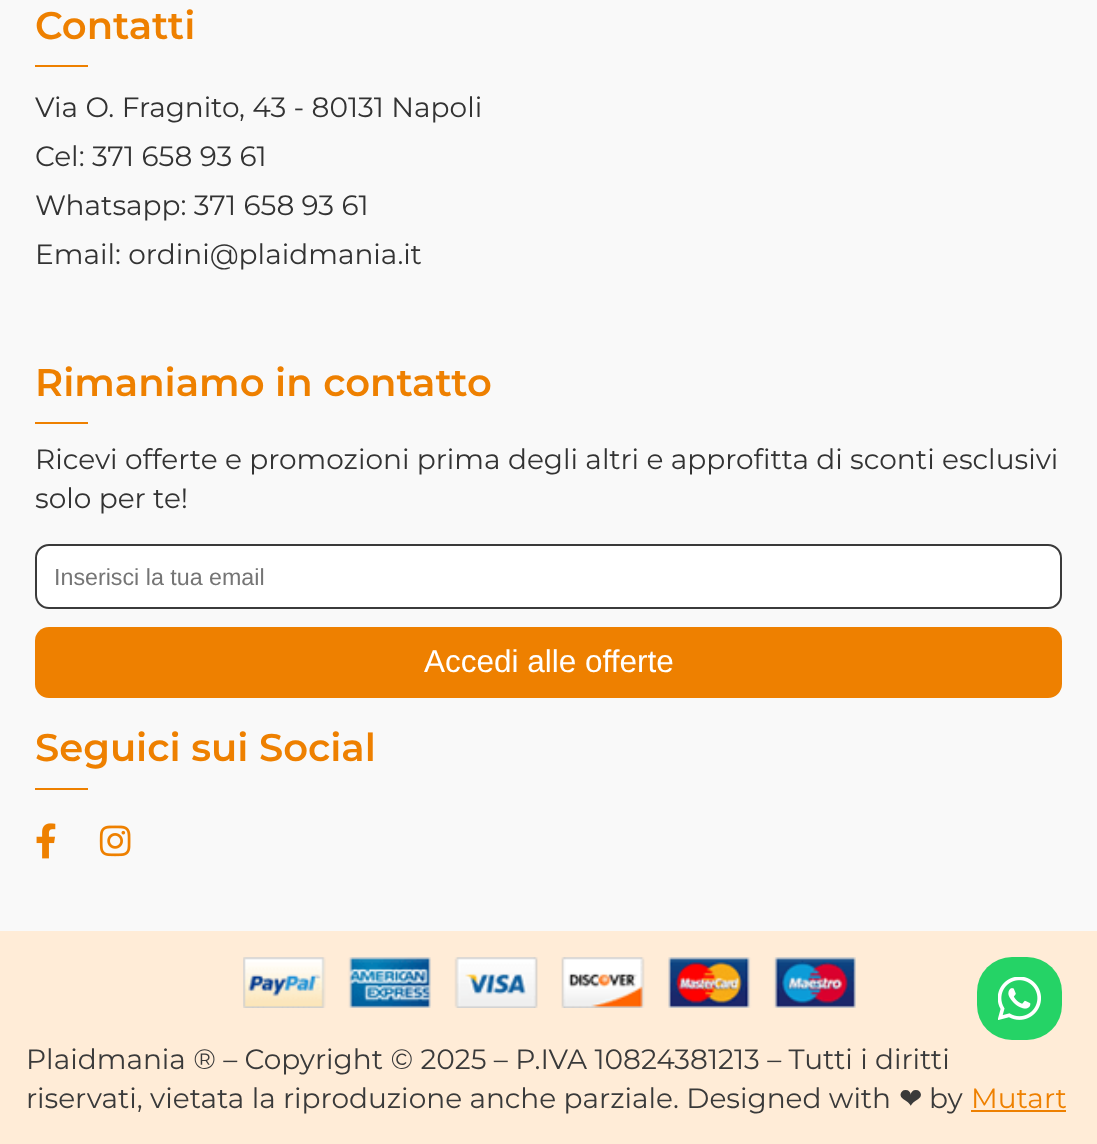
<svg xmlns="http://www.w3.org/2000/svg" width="1097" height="1144">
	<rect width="100%" height="100%" fill="#FFECD7" />
	<rect x="0" y="0" width="1097" height="931" fill="#F9F9F9" />
	<text x="35" y="39" font-family="Montserrat" font-size="38.5" font-weight="600" fill="#EE8000">Contatti</text>
	<rect x="35" y="65" width="53" height="2" fill="#EE8000" />
	<g font-family="Montserrat" font-size="28" fill="#333333">
		<text x="35" y="117">Via O. Fragnito, 43 - 80131 Napoli</text>
		<text x="35" y="166">Cel: 371 658 93 61</text>
		<text x="35" y="215">Whatsapp: 371 658 93 61</text>
		<text x="35" y="264">Email: ordini@plaidmania.it</text>
	</g>
	<text x="35" y="396" font-family="Montserrat" font-size="38.5" font-weight="600" fill="#EE8000">Rimaniamo in contatto</text>
	<rect x="35" y="422" width="53" height="2" fill="#EE8000" />
	<g font-family="Montserrat" font-size="28" fill="#333333">
		<text x="35" y="469">Ricevi offerte e promozioni prima degli altri e approfitta di sconti esclusivi</text>
		<text x="35" y="508">solo per te!</text>
	</g>
	<rect x="36" y="545" width="1025" height="63" rx="13" fill="#FFFFFF" stroke="#3A3A3A" stroke-width="2" />
	<text x="54" y="585" font-family="Liberation Sans" font-size="23.25" fill="#757575">Inserisci la tua email</text>
	<rect x="35" y="627" width="1027" height="71" rx="14" fill="#EE8000" />
	<text x="424" y="672" font-family="Liberation Sans" font-size="31.5" fill="#FFFFFF">Accedi alle offerte</text>
	<text x="35" y="761" font-family="Montserrat" font-size="38.5" font-weight="600" fill="#EE8000">Seguici sui Social</text>
	<rect x="35" y="788" width="53" height="2" fill="#EE8000" />
	<image x="36" y="823" width="20" height="36" href="assets/img1.png" />
	<image x="99" y="825" width="32" height="32" href="assets/img2.png" />
	<rect x="977" y="957" width="85" height="83" rx="35" fill="#25D366" />
	<image x="998" y="977" width="43" height="43" href="assets/img3.png" />
	<image x="243" y="957" width="613" height="51" href="assets/img4.png" />
	<g font-family="Montserrat" font-size="28" fill="#3A3A3A">
		<text x="26" y="1069">Plaidmania ® – Copyright © 2025 – P.IVA 10824381213 – Tutti i diritti</text>
		<text x="26" y="1108">riservati, vietata la riproduzione anche parziale. Designed with</text>
	</g>
	<text x="899" y="1108" font-family="DejaVu Sans" font-size="28" fill="#3A3A3A">❤</text>
	<text x="929" y="1108" font-family="Montserrat" font-size="28" fill="#3A3A3A">by</text>
	<text x="971" y="1108" font-family="Montserrat" font-size="28" fill="#EE8000">Mutart</text>
	<rect x="971" y="1110" width="95" height="2" fill="#EE8000" />
</svg>
